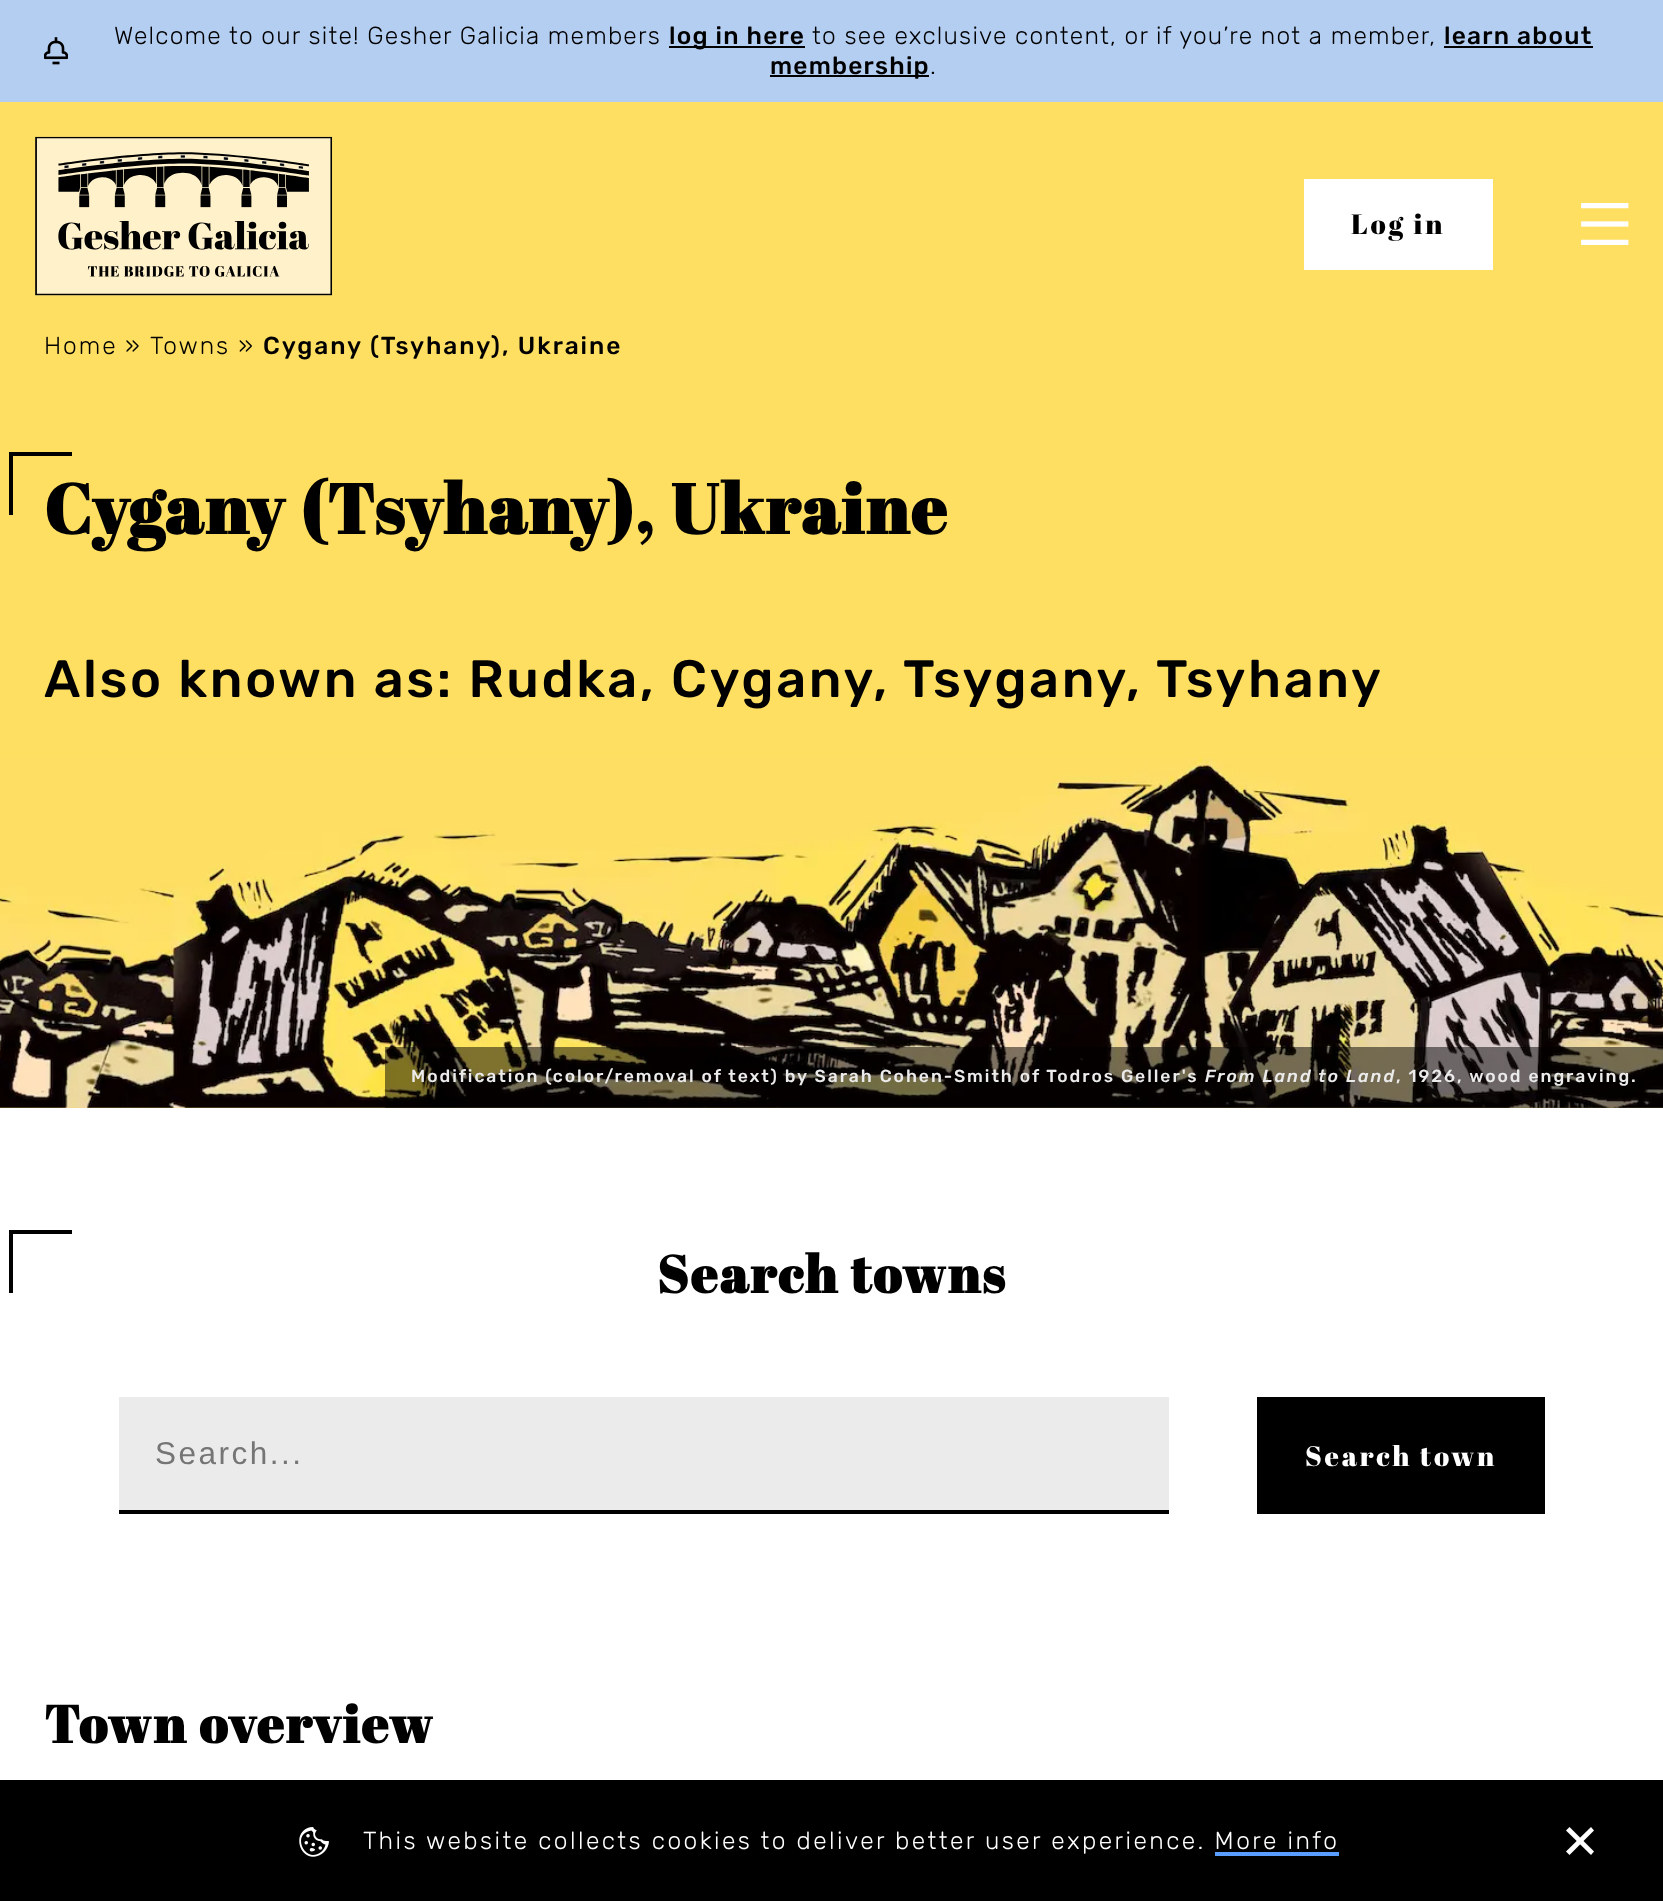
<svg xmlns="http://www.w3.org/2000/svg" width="1663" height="1901">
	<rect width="100%" height="100%" fill="#FFFFFF" />
	<rect x="0" y="0" width="1663" height="102" fill="#B4CEF2" />
	<image x="44" y="37" width="24" height="28" href="assets/img1.png" />
	<text x="114" y="44" font-family="Rubik" font-size="24.5" font-weight="300" letter-spacing="1.22" fill="#000000">Welcome to our site! Gesher Galicia members</text>
	<rect x="669" y="46" width="136" height="2" fill="#000000" />
	<text x="669" y="44" font-family="Rubik" font-size="24.5" font-weight="500" letter-spacing="1.22" fill="#000000">log in here</text>
	<text x="812" y="44" font-family="Rubik" font-size="24.5" font-weight="300" letter-spacing="1.22" fill="#000000">to see exclusive content, or if you’re not a member,</text>
	<text x="1444" y="44" font-family="Rubik" font-size="24.5" font-weight="500" letter-spacing="1.22" fill="#000000">learn about</text>
	<rect x="1444" y="46" width="149" height="2" fill="#000000" />
	<rect x="770" y="75" width="159" height="2" fill="#000000" />
	<text x="770" y="74" font-family="Rubik" font-size="24.5" font-weight="500" letter-spacing="1.22" fill="#000000">membership</text>
	<text x="930" y="74" font-family="Rubik" font-size="24.5" font-weight="300" letter-spacing="1.22" fill="#000000">.</text>
	<rect x="0" y="102" width="1663" height="1006" fill="#FEDF62" />
	<image x="35" y="136" width="298" height="160" href="assets/img2.png" />
	<rect x="1304" y="179" width="189" height="91" fill="#FFFFFF" />
	<text x="1351" y="234" font-family="Abril Fatface" font-size="28" letter-spacing="2.75" fill="#000000">Log in</text>
	<image x="1581" y="203" width="48" height="42" href="assets/img3.png" />
	<g font-family="Rubik" font-size="24.5" font-weight="300" letter-spacing="1.95" fill="#000000">
		<text x="44" y="354">Home</text>
		<text x="125" y="354">»</text>
		<text x="150" y="354">Towns »</text>
	</g>
	<text x="263" y="354" font-family="Rubik" font-size="24.5" font-weight="500" letter-spacing="1.95" fill="#000000">Cygany (Tsyhany), Ukraine</text>
	<rect x="9" y="452" width="63" height="4" fill="#000000" />
	<rect x="9" y="452" width="4" height="63" fill="#000000" />
	<text x="44" y="534" font-family="Abril Fatface" font-size="70" font-weight="700" letter-spacing="1.95" fill="#000000">Cygany (Tsyhany), Ukraine</text>
	<text x="44" y="697" font-family="Rubik" font-size="52.5" font-weight="500" letter-spacing="2.6" fill="#000000">Also known as: Rudka, Cygany, Tsygany, Tsyhany</text>
	<image x="0" y="758" width="1663" height="350" href="assets/img4.png" />
	<rect x="385" y="1047" width="1278" height="61" fill="#000000" fill-opacity="0.5" />
	<text x="411" y="1082" font-family="Rubik" font-size="17.5" font-weight="500" letter-spacing="1.95" fill="#ECEBEB">Modification (color/removal of text) by Sarah Cohen-Smith of Todros Geller's</text>
	<text x="1205" y="1082" font-family="Rubik" font-size="17.5" font-weight="500" font-style="italic" letter-spacing="1.95" fill="#ECEBEB">From Land to Land</text>
	<text x="1396" y="1082" font-family="Rubik" font-size="17.5" font-weight="500" letter-spacing="1.95" fill="#ECEBEB">, 1926, wood engraving.</text>
	<rect x="9" y="1230" width="63" height="4" fill="#000000" />
	<rect x="9" y="1230" width="4" height="63" fill="#000000" />
	<text x="657" y="1293" font-family="Abril Fatface" font-size="52.5" font-weight="700" letter-spacing="1.95" fill="#000000">Search towns</text>
	<rect x="119" y="1397" width="1050" height="113" fill="#EBEBEB" />
	<rect x="119" y="1510" width="1050" height="4" fill="#000000" />
	<text x="155" y="1464" font-family="Liberation Sans" font-size="31.5" letter-spacing="2.5" fill="#757575">Search...</text>
	<rect x="1257" y="1397" width="288" height="117" fill="#000000" />
	<text x="1305" y="1466" font-family="Abril Fatface" font-size="28" letter-spacing="2.75" fill="#FFFFFF">Search town</text>
	<text x="44" y="1743" font-family="Abril Fatface" font-size="52.5" font-weight="700" letter-spacing="1.95" fill="#000000">Town overview</text>
	<rect x="0" y="1780" width="1663" height="121" fill="#000000" />
	<image x="299" y="1827" width="30" height="30" href="assets/img5.png" />
	<text x="363" y="1849" font-family="Rubik" font-size="24.5" font-weight="300" letter-spacing="2.45" fill="#FFFFFF">This website collects cookies to deliver better user experience. More info</text>
	<rect x="1215" y="1852" width="124" height="4" fill="#589DFF" />
	<path d="M1591 1855L1566 1830.5L1569.5 1827L1594 1851.5Z" fill="#FFFFFF" />
	<path d="M1569.5 1855L1566 1851.5L1591 1827L1594 1830.5Z" fill="#FFFFFF" />
</svg>
